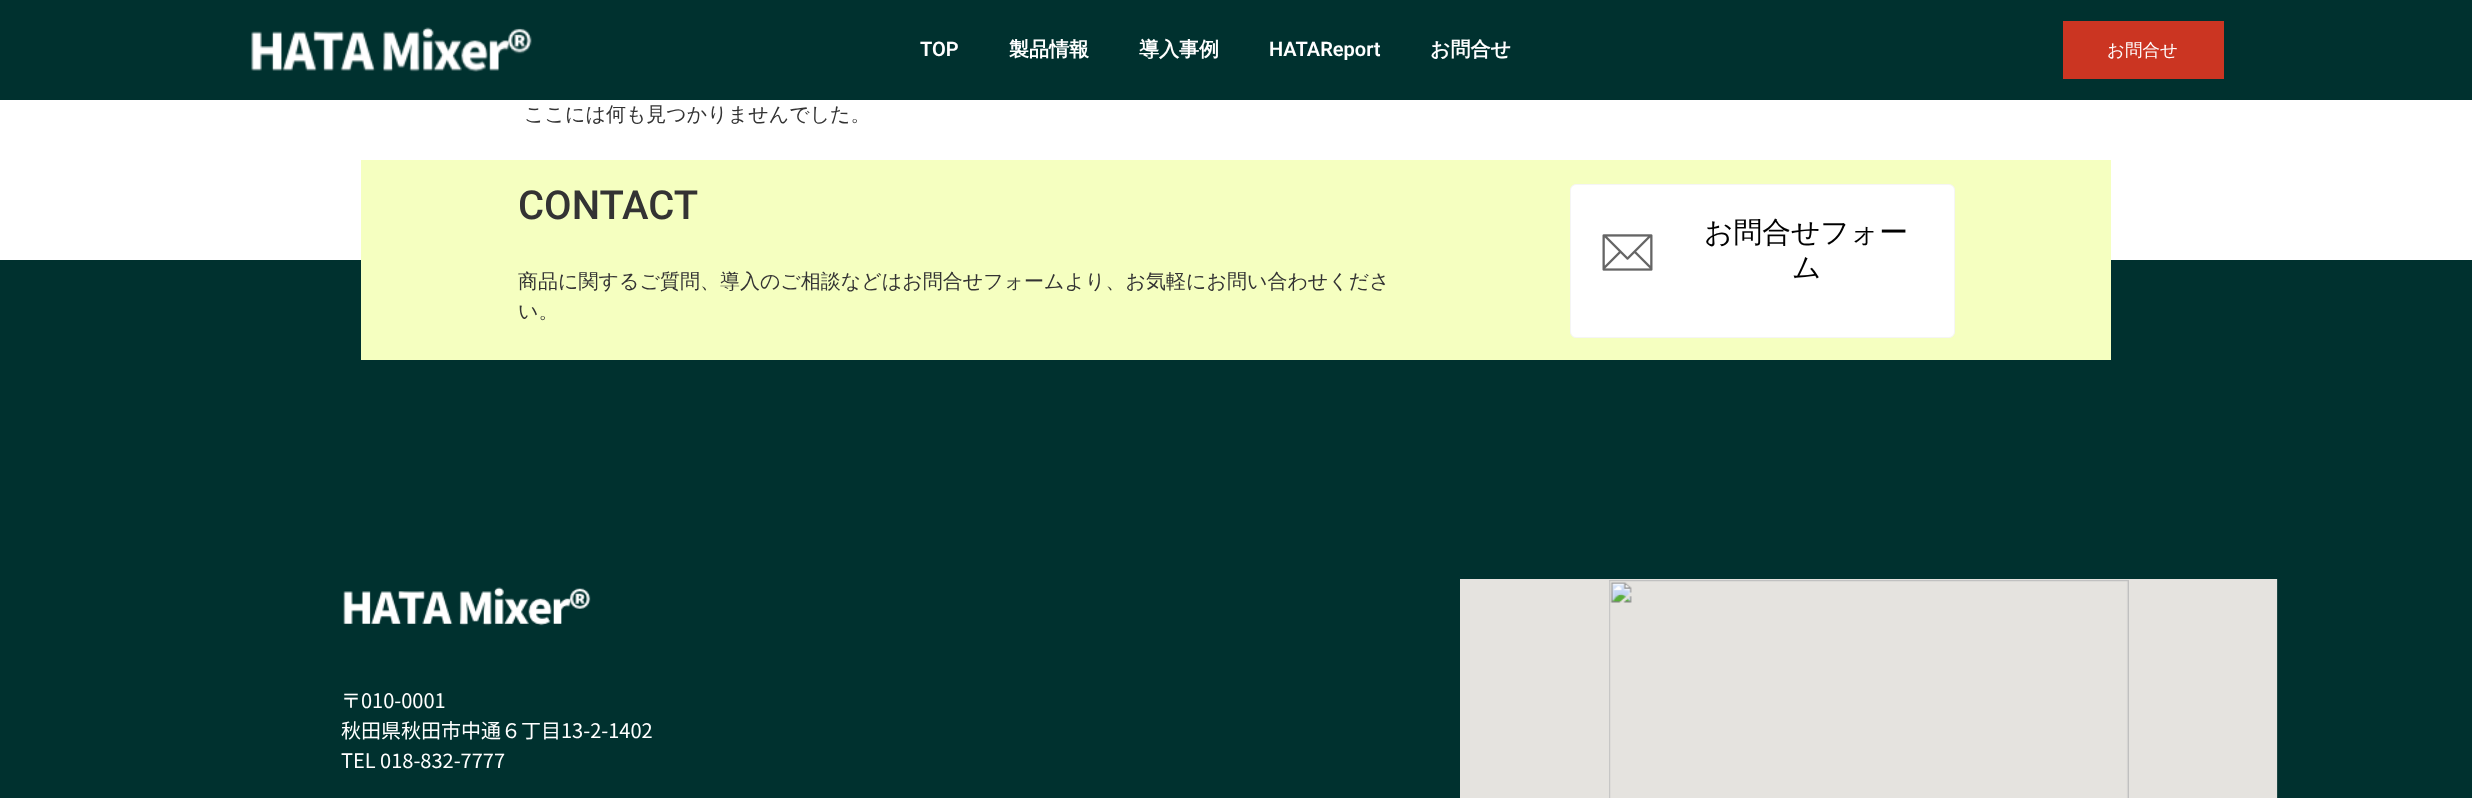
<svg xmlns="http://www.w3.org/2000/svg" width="2472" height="798">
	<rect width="100%" height="100%" fill="#FFFFFF" />
	<rect x="0" y="0" width="2472" height="100" fill="#00312F" />
	<image x="251" y="27" width="281" height="45" href="assets/img1.png" />
	<text x="920" y="56" font-family="Roboto" font-size="20" font-weight="600" fill="#FFFFFF">TOP</text>
	<g font-family="WenQuanYi Zen Hei" font-size="20" font-weight="700" fill="#FFFFFF">
		<text x="1009" y="56">製品情報</text>
		<text x="1139" y="56">導入事例</text>
	</g>
	<text x="1269" y="56" font-family="Roboto" font-size="20" font-weight="600" fill="#FFFFFF">HATAReport</text>
	<text x="1430" y="56" font-family="WenQuanYi Zen Hei" font-size="20" font-weight="700" fill="#FFFFFF">お問合せ</text>
	<rect x="2063" y="21" width="161" height="58" fill="#CB3522" />
	<text x="2107" y="56" font-family="WenQuanYi Zen Hei" font-size="17.5" font-weight="500" fill="#FFFFFF">お問合せ</text>
	<text x="524" y="121" font-family="WenQuanYi Zen Hei" font-size="20" font-weight="500" fill="#333333">ここには何も見つかりませんでした。</text>
	<rect x="0" y="260" width="2472" height="538" fill="#00312F" />
	<rect x="361" y="160" width="1750" height="200" fill="#F5FFC0" />
	<text x="518" y="219" font-family="Roboto" font-size="40" font-weight="500" fill="#333333">CONTACT</text>
	<g font-family="WenQuanYi Zen Hei" font-size="20" font-weight="500" fill="#333333">
		<text x="518" y="288">商品に関するご質問、導入のご相談などはお問合せフォームより、お気軽にお問い合わせくださ</text>
		<text x="518" y="318">い。</text>
	</g>
	<rect x="1570.5" y="184.5" width="384" height="153" rx="5.5" fill="#FFFFFF" stroke="#F5F5F5" />
	<image x="1602" y="234" width="51" height="37" href="assets/img2.png" />
	<g font-family="WenQuanYi Zen Hei" font-size="28.75" font-weight="500" fill="#000000">
		<text x="1704" y="242">お問合せフォー</text>
		<text x="1792" y="277">ム</text>
	</g>
	<image x="343" y="587" width="248" height="39" href="assets/img3.png" />
	<g font-family="Noto Sans JP" font-size="20" fill="#FFFFFF">
		<text x="341" y="708">〒010-0001</text>
		<text x="341" y="738">秋田県秋田市中通６丁目13-2-1402</text>
		<text x="341" y="768">TEL 018-832-7777</text>
	</g>
	<image x="1460" y="579" width="818" height="219" href="assets/img4.png" />
</svg>
